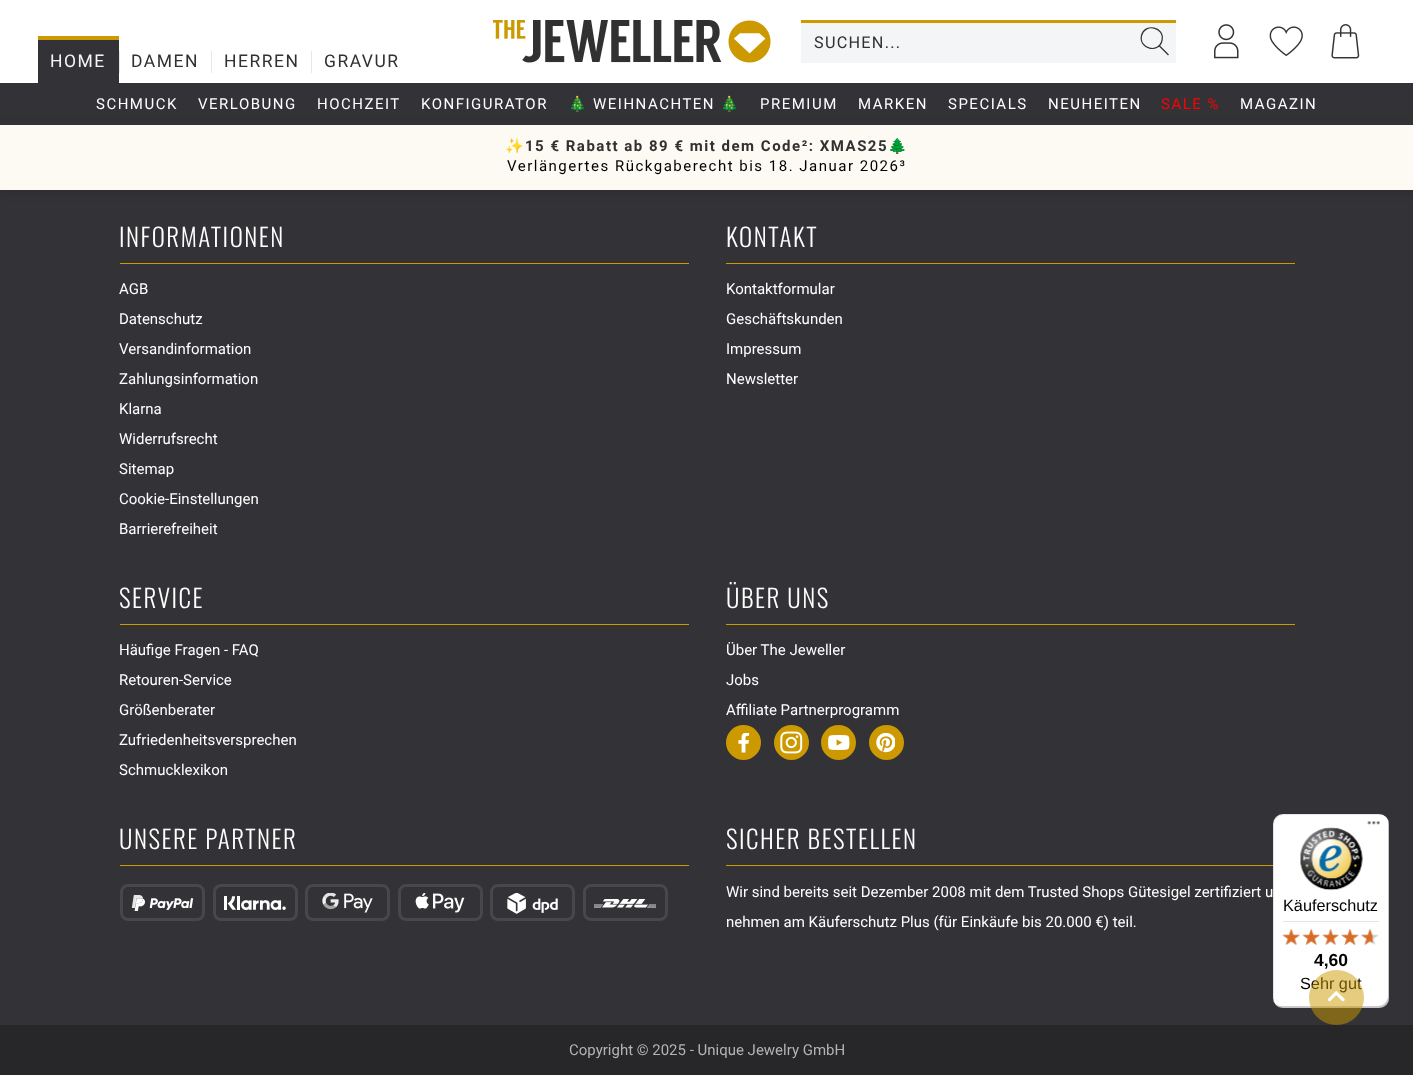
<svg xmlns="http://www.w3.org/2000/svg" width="1413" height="1075">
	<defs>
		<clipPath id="clip1"><rect x="0" y="138" width="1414" height="40" /></clipPath>
	</defs>
	<rect width="100%" height="100%" fill="#333337" />
	<rect x="0" y="0" width="1413" height="83" fill="#FFFFFF" />
	<image x="493" y="20" width="278" height="43" href="assets/img1.png" />
	<rect x="801" y="23" width="375" height="40" fill="#F4F5F7" />
	<rect x="801" y="20" width="375" height="3" fill="#CC9900" />
	<text x="814" y="48" font-family="Roboto" font-size="16.25" letter-spacing="1.25" fill="#313131">SUCHEN...</text>
	<path d="M1141.5 35.5C1145 22.5 1165 27 1162 40.5C1159 54 1138.5 49 1141.5 35.5ZM1159 45.5L1168.5 55" fill="none" stroke="#313131" stroke-width="1.2" />
	<image x="1214" y="24" width="25" height="35" href="assets/img2.png" />
	<image x="1269" y="26" width="34" height="31" href="assets/img3.png" />
	<image x="1331" y="24" width="29" height="35" href="assets/img4.png" />
	<rect x="38" y="40" width="81" height="43" fill="#333337" />
	<rect x="38" y="36" width="81" height="4" fill="#CC9900" />
	<text x="50" y="67" font-family="Roboto" font-size="17.5" letter-spacing="1.5" fill="#F4F5F7">HOME</text>
	<rect x="119" y="51" width="1" height="22" fill="#E3E6EA" />
	<text x="131" y="67" font-family="Roboto" font-size="17.5" letter-spacing="1.5" fill="#313131">DAMEN</text>
	<rect x="211" y="51" width="1" height="22" fill="#E3E6EA" />
	<text x="224" y="67" font-family="Roboto" font-size="17.5" letter-spacing="1.5" fill="#313131">HERREN</text>
	<rect x="311" y="51" width="1" height="22" fill="#E3E6EA" />
	<text x="324" y="67" font-family="Roboto" font-size="17.5" letter-spacing="1.5" fill="#313131">GRAVUR</text>
	<rect x="0" y="125" width="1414" height="65" fill="#000000" fill-opacity="0.2" filter="blur(6px)" />
	<rect x="0" y="121" width="1413" height="4" fill="#333337" />
	<g font-family="Roboto" font-size="15" letter-spacing="1.5" fill="#FFFFFF">
		<text x="96" y="109">SCHMUCK</text>
		<text x="198" y="109">VERLOBUNG</text>
		<text x="317" y="109">HOCHZEIT</text>
		<text x="421" y="109">KONFIGURATOR</text>
	</g>
	<text x="568" y="109" font-family="Noto Color Emoji" font-size="15" letter-spacing="1.5" fill="#FFFFFF">🎄</text>
	<text x="593" y="109" font-family="Roboto" font-size="15" letter-spacing="1.5" fill="#FFFFFF">WEIHNACHTEN</text>
	<text x="720" y="109" font-family="Noto Color Emoji" font-size="15" letter-spacing="1.5" fill="#FFFFFF">🎄</text>
	<g font-family="Roboto" font-size="15" letter-spacing="1.5" fill="#FFFFFF">
		<text x="760" y="109">PREMIUM</text>
		<text x="858" y="109">MARKEN</text>
		<text x="948" y="109">SPECIALS</text>
		<text x="1048" y="109">NEUHEITEN</text>
	</g>
	<text x="1161" y="109" font-family="Roboto" font-size="15" letter-spacing="1.5" fill="#FF0000">SALE %</text>
	<text x="1240" y="109" font-family="Roboto" font-size="15" letter-spacing="1.5" fill="#FFFFFF">MAGAZIN</text>
	<rect x="0" y="125" width="1413" height="65" fill="#FCFAF2" />
	<g clip-path="url(#clip1)">
		<text x="505" y="151" font-family="Noto Color Emoji" font-size="15" font-weight="700" letter-spacing="1.5" fill="#313131">✨</text>
	</g>
	<text x="525" y="151" font-family="Roboto" font-size="15" font-weight="700" letter-spacing="1.5" fill="#313131">15 € Rabatt ab 89 € mit dem Code²: XMAS25</text>
	<g clip-path="url(#clip1)">
		<text x="888" y="151" font-family="Noto Color Emoji" font-size="15" font-weight="700" letter-spacing="1.5" fill="#313131">🌲</text>
	</g>
	<text x="507" y="171" font-family="Roboto" font-size="15" letter-spacing="1.5" fill="#000000">Verlängertes Rückgaberecht bis 18. Januar 2026³</text>
	<rect x="120" y="263" width="569" height="1" fill="#CC9900" />
	<text x="119" y="247" font-family="Oswald" font-size="25" font-weight="300" letter-spacing="1.5" fill="#FFFFFF">INFORMATIONEN</text>
	<g font-family="Roboto" font-size="15" fill="#FFFFFF">
		<text x="119" y="294">AGB</text>
		<text x="119" y="324">Datenschutz</text>
		<text x="119" y="354">Versandinformation</text>
		<text x="119" y="384">Zahlungsinformation</text>
		<text x="119" y="414">Klarna</text>
		<text x="119" y="444">Widerrufsrecht</text>
		<text x="119" y="474">Sitemap</text>
		<text x="119" y="504">Cookie-Einstellungen</text>
		<text x="119" y="534">Barrierefreiheit</text>
	</g>
	<rect x="726" y="263" width="569" height="1" fill="#CC9900" />
	<text x="726" y="247" font-family="Oswald" font-size="25" font-weight="300" letter-spacing="1.5" fill="#FFFFFF">KONTAKT</text>
	<g font-family="Roboto" font-size="15" fill="#FFFFFF">
		<text x="726" y="294">Kontaktformular</text>
		<text x="726" y="324">Geschäftskunden</text>
		<text x="726" y="354">Impressum</text>
		<text x="726" y="384">Newsletter</text>
	</g>
	<rect x="120" y="624" width="569" height="1" fill="#CC9900" />
	<text x="119" y="608" font-family="Oswald" font-size="25" font-weight="300" letter-spacing="1.5" fill="#FFFFFF">SERVICE</text>
	<g font-family="Roboto" font-size="15" fill="#FFFFFF">
		<text x="119" y="655">Häufige Fragen - FAQ</text>
		<text x="119" y="685">Retouren-Service</text>
		<text x="119" y="715">Größenberater</text>
		<text x="119" y="745">Zufriedenheitsversprechen</text>
		<text x="119" y="775">Schmucklexikon</text>
	</g>
	<rect x="726" y="624" width="569" height="1" fill="#CC9900" />
	<text x="726" y="608" font-family="Oswald" font-size="25" font-weight="300" letter-spacing="1.5" fill="#FFFFFF">ÜBER UNS</text>
	<g font-family="Roboto" font-size="15" fill="#FFFFFF">
		<text x="726" y="655">Über The Jeweller</text>
		<text x="726" y="685">Jobs</text>
		<text x="726" y="715">Affiliate Partnerprogramm</text>
	</g>
	<circle cx="743.5" cy="742.5" r="17.5" fill="#CC9900" />
	<image x="738" y="733" width="12" height="20" href="assets/img5.png" />
	<circle cx="791.5" cy="742.5" r="17.5" fill="#CC9900" />
	<image x="780" y="731" width="23" height="23" href="assets/img6.png" />
	<circle cx="838.5" cy="742.5" r="17.5" fill="#CC9900" />
	<image x="828" y="735" width="22" height="15" href="assets/img7.png" />
	<circle cx="886.5" cy="742.5" r="17.5" fill="#CC9900" />
	<image x="876" y="733" width="19" height="20" href="assets/img8.png" />
	<rect x="120" y="865" width="569" height="1" fill="#CC9900" />
	<text x="119" y="849" font-family="Oswald" font-size="25" font-weight="300" letter-spacing="1.5" fill="#FFFFFF">UNSERE PARTNER</text>
	<rect x="121.5" y="885.5" width="82" height="34" rx="6.5" fill="none" stroke="#47474C" stroke-width="3" />
	<image x="131" y="895" width="63" height="16" href="assets/img9.png" />
	<rect x="214.5" y="885.5" width="82" height="34" rx="6.5" fill="none" stroke="#47474C" stroke-width="3" />
	<image x="224" y="896" width="62" height="14" href="assets/img10.png" />
	<rect x="306.5" y="885.5" width="82" height="34" rx="6.5" fill="none" stroke="#47474C" stroke-width="3" />
	<image x="322" y="893" width="51" height="20" href="assets/img11.png" />
	<rect x="399.5" y="885.5" width="82" height="34" rx="6.5" fill="none" stroke="#47474C" stroke-width="3" />
	<image x="415" y="893" width="50" height="20" href="assets/img12.png" />
	<rect x="491.5" y="885.5" width="82" height="34" rx="6.5" fill="none" stroke="#47474C" stroke-width="3" />
	<image x="507" y="893" width="51" height="21" href="assets/img13.png" />
	<rect x="584.5" y="885.5" width="82" height="34" rx="6.5" fill="none" stroke="#47474C" stroke-width="3" />
	<image x="594" y="899" width="62" height="9" href="assets/img14.png" />
	<rect x="726" y="865" width="547" height="1" fill="#CC9900" />
	<text x="726" y="849" font-family="Oswald" font-size="25" font-weight="300" letter-spacing="1.5" fill="#FFFFFF">SICHER BESTELLEN</text>
	<g font-family="Roboto" font-size="15" fill="#FFFFFF">
		<text x="726" y="897">Wir sind bereits seit Dezember 2008 mit dem Trusted Shops Gütesigel zertifiziert u</text>
		<text x="726" y="927">nehmen am Käuferschutz Plus (für Einkäufe bis 20.000 €) teil.</text>
	</g>
	<rect x="1273" y="814" width="116" height="194" rx="10" fill="#FFFFFF" />
	<path d="M1284 815H1380C1382 815 1384 815 1385 816C1384 815 1381 814 1379 814H1283C1277 814 1273 818 1273 824V998C1273 1001 1274 1004 1277 1006C1275 1004 1274 1001 1274 999V825C1274 819 1278 815 1284 815Z" fill="#000000" fill-opacity="0.1" />
	<path d="M1275 1004C1277 1006 1280 1008 1283 1008H1379C1385 1008 1389 1004 1389 998V824C1389 822 1388 820 1387 818C1388 819 1388 821 1388 822V996C1388 1002 1383 1006 1378 1006H1281C1279 1006 1277 1005 1275 1004Z" fill="#000000" fill-opacity="0.2" />
	<path d="M1275 1005C1277 1007 1280 1008 1283 1008H1379C1385 1008 1389 1004 1389 998V824C1389 822 1388 819 1387 818C1388 819 1388 821 1388 823V997C1388 1002 1384 1007 1378 1007H1282C1279 1007 1277 1006 1275 1005Z" fill="#323232" fill-opacity="0.2" />
	<path d="M1275 1005C1277 1007 1280 1008 1283 1008H1379C1385 1008 1389 1004 1389 998V824C1389 821 1388 818 1385 816C1387 818 1388 821 1388 823V997C1388 1002 1384 1007 1378 1007H1282C1279 1007 1277 1006 1275 1005Z" fill="#FFFFFF" fill-opacity="0.3" />
	<image x="1367" y="821" width="13" height="4" href="assets/img15.png" />
	<image x="1300" y="827" width="63" height="64" href="assets/img16.png" />
	<text x="1283" y="911" font-family="Liberation Sans" font-size="16.25" fill="#000000">Käuferschutz</text>
	<rect x="1283" y="921" width="96" height="1" fill="#E5E5E5" />
	<image x="1282" y="929" width="18" height="16" href="assets/img22.png" />
	<image x="1282" y="928" width="18" height="17" href="assets/img17.png" />
	<image x="1303" y="929" width="17" height="16" href="assets/img23.png" />
	<image x="1302" y="928" width="18" height="17" href="assets/img18.png" />
	<image x="1322" y="929" width="17" height="16" href="assets/img24.png" />
	<image x="1322" y="928" width="17" height="17" href="assets/img19.png" />
	<image x="1341" y="929" width="18" height="16" href="assets/img25.png" />
	<image x="1341" y="928" width="18" height="17" href="assets/img20.png" />
	<image x="1361" y="929" width="18" height="16" href="assets/img26.png" />
	<image x="1361" y="928" width="12" height="17" href="assets/img21.png" />
	<text x="1314" y="966" font-family="Liberation Sans" font-size="17.5" font-weight="700" fill="#000000">4,60</text>
	<text x="1300" y="989" font-family="Liberation Sans" font-size="16.25" fill="#000000">Sehr gut</text>
	<circle cx="1336.5" cy="997.5" r="27.5" fill="#CC9900" fill-opacity="0.5" />
	<image x="1328" y="991" width="17" height="11" href="assets/img27.png" />
	<rect x="0" y="1025" width="1413" height="50" fill="#27272A" />
	<text x="569" y="1055" font-family="Roboto" font-size="15" fill="#B4B4B4">Copyright © 2025 - Unique Jewelry GmbH</text>
</svg>
